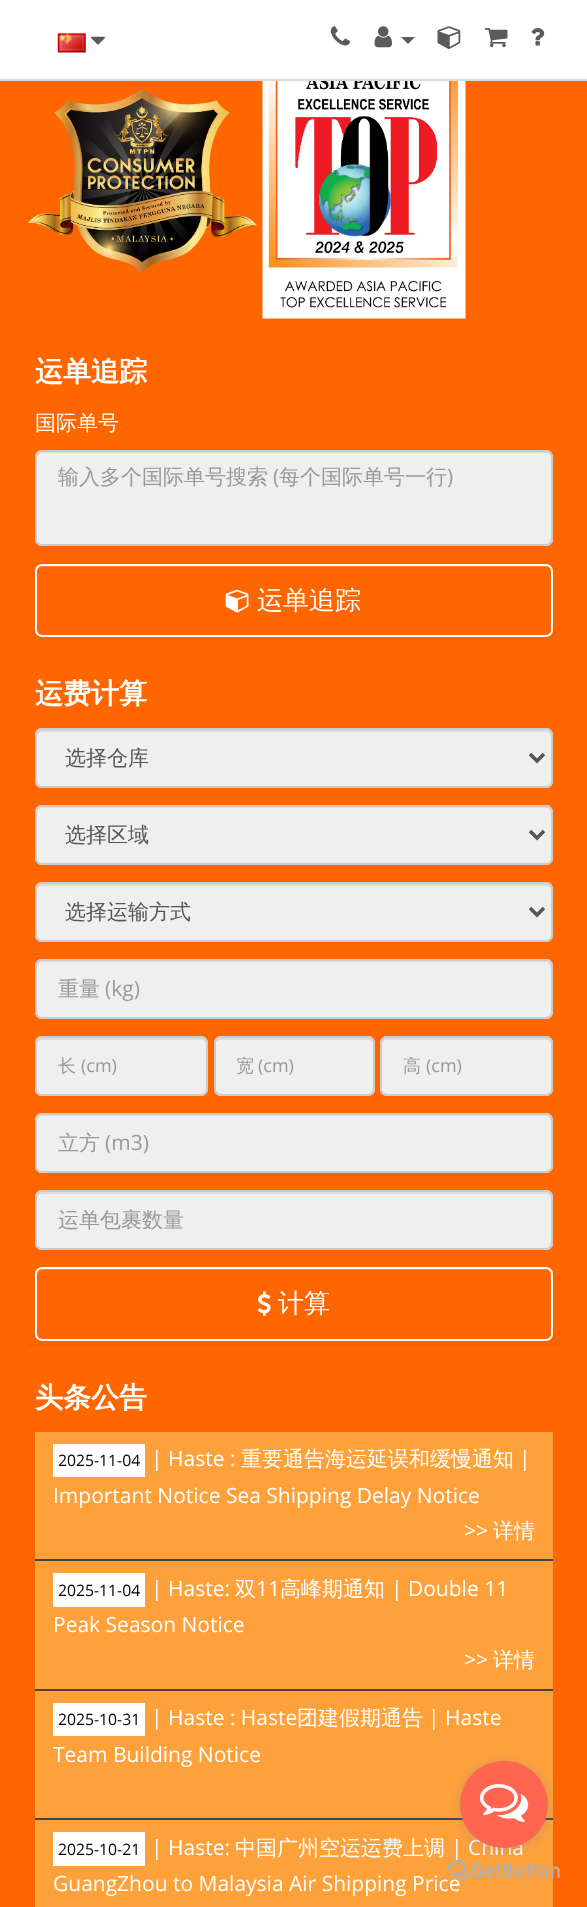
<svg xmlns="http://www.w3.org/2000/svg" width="587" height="1907">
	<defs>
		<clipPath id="clip1"><path d="M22 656H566V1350H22ZM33 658H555C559 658 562 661 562 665V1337C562 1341 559 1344 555 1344H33C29 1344 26 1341 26 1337V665C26 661 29 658 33 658Z" clip-rule="evenodd" /></clipPath>
	</defs>
	<rect width="100%" height="100%" fill="#FF6600" />
	<rect x="0" y="0" width="587" height="79" fill="#FFFFFF" />
	<rect x="0" y="79" width="587" height="2" fill="#DBDBDB" />
	<image x="57" y="32" width="29" height="21" href="assets/img1.png" />
	<image x="91" y="36" width="14" height="9" href="assets/img2.png" />
	<image x="330" y="26" width="20" height="20" href="assets/img3.png" />
	<image x="374" y="26" width="18" height="22" href="assets/img4.png" />
	<path d="M401 37H415L408 44Z" fill="#5B5B5B" />
	<image x="437" y="26" width="24" height="23" href="assets/img5.png" />
	<image x="484" y="28" width="24" height="20" href="assets/img6.png" />
	<image x="531" y="28" width="14" height="18" href="assets/img7.png" />
	<image x="27" y="84" width="230" height="191" href="assets/img8.png" />
	<image x="262" y="81" width="204" height="238" href="assets/img9.png" />
	<text x="35" y="381" font-family="WenQuanYi Zen Hei" font-size="28" font-weight="700" fill="#FFFFFF">运单追踪</text>
	<text x="35" y="430" font-family="WenQuanYi Zen Hei" font-size="21" font-weight="500" fill="#FFFFFF">国际单号</text>
	<rect x="35" y="450" width="518" height="96" rx="7" fill="#EFEFEF" />
	<path d="M42 453H546C549 453 551 456 551 458V457C551 454 549 452 546 452H42C39 452 37 454 37 457V458C37 456 39 453 42 453Z" fill="#DDDDDD" />
	<rect x="36" y="451" width="516" height="94" rx="6" fill="none" stroke="#CCCCCC" stroke-width="2" />
	<text x="58" y="484" font-family="WenQuanYi Zen Hei" font-size="21" font-weight="500" fill="#999999">输入多个国际单号搜索</text>
	<text x="273" y="484" font-family="Open Sans" font-size="21" fill="#999999">(</text>
	<text x="279" y="484" font-family="WenQuanYi Zen Hei" font-size="21" font-weight="500" fill="#999999">每个国际单号一行</text>
	<text x="447" y="484" font-family="Open Sans" font-size="21" fill="#999999">)</text>
	<rect x="35" y="565" width="518" height="74" rx="7" fill="#000000" fill-opacity="0.05" filter="blur(2px)" />
	<rect x="35" y="564" width="518" height="73" rx="7" fill="#FF6600" />
	<path d="M42 567H546C549 567 551 569 551 572V570C551 567 549 565 546 565H42C39 565 37 567 37 570V572C37 569 39 567 42 567Z" fill="#FF8533" />
	<rect x="36" y="565" width="516" height="71" rx="6" fill="none" stroke="#FFFFFF" stroke-width="2" />
	<image x="225" y="589" width="24" height="24" href="assets/img10.png" />
	<text x="257" y="609" font-family="WenQuanYi Zen Hei" font-size="26" font-weight="500" fill="#FFFFFF">运单追踪</text>
	<g clip-path="url(#clip1)">
		<rect x="26" y="660" width="536" height="686" rx="7" fill="#000000" fill-opacity="0.05" filter="blur(1px)" />
	</g>
	<text x="35" y="703" font-family="WenQuanYi Zen Hei" font-size="28" font-weight="700" fill="#FFFFFF">运费计算</text>
	<rect x="35" y="728" width="518" height="60" rx="7" fill="#EFEFEF" />
	<path d="M42 732H546C549 732 551 734 551 737V735C551 732 549 730 546 730H42C39 730 37 732 37 735V737C37 734 39 732 42 732Z" fill="#DDDDDD" />
	<rect x="36" y="729" width="516" height="58" rx="6" fill="none" stroke="#CCCCCC" stroke-width="2" />
	<path d="M530 754L537 761L544 754" fill="none" stroke="#555555" stroke-width="3.5" />
	<text x="65" y="765" font-family="WenQuanYi Zen Hei" font-size="21" font-weight="500" fill="#555555">选择仓库</text>
	<rect x="35" y="805" width="518" height="60" rx="7" fill="#EFEFEF" />
	<path d="M42 808H546C549 808 551 811 551 814V812C551 809 549 807 546 807H42C39 807 37 809 37 812V814C37 811 39 808 42 808Z" fill="#DDDDDD" />
	<rect x="36" y="806" width="516" height="58" rx="6" fill="none" stroke="#CCCCCC" stroke-width="2" />
	<path d="M530 831L537 838L544 831" fill="none" stroke="#555555" stroke-width="3.5" />
	<text x="65" y="842" font-family="WenQuanYi Zen Hei" font-size="21" font-weight="500" fill="#555555">选择区域</text>
	<rect x="35" y="882" width="518" height="60" rx="7" fill="#EFEFEF" />
	<path d="M42 886H546C549 886 551 888 551 891V889C551 886 549 884 546 884H42C39 884 37 886 37 889V891C37 888 39 886 42 886Z" fill="#DDDDDD" />
	<rect x="36" y="883" width="516" height="58" rx="6" fill="none" stroke="#CCCCCC" stroke-width="2" />
	<path d="M530 908L537 915L544 908" fill="none" stroke="#555555" stroke-width="3.5" />
	<text x="65" y="919" font-family="WenQuanYi Zen Hei" font-size="21" font-weight="500" fill="#555555">选择运输方式</text>
	<rect x="35" y="959" width="518" height="60" rx="7" fill="#EFEFEF" />
	<path d="M42 962H546C549 962 551 965 551 968V966C551 963 549 961 546 961H42C39 961 37 963 37 966V968C37 965 39 962 42 962Z" fill="#DDDDDD" />
	<rect x="36" y="960" width="516" height="58" rx="6" fill="none" stroke="#CCCCCC" stroke-width="2" />
	<text x="58" y="996" font-family="WenQuanYi Zen Hei" font-size="21" font-weight="500" fill="#999999">重量</text>
	<text x="105" y="996" font-family="Open Sans" font-size="21" fill="#999999">(kg)</text>
	<rect x="35" y="1036" width="173" height="60" rx="7" fill="#EFEFEF" />
	<path d="M42 1040H201C204 1040 206 1042 206 1045V1090V1093C206 1092 207 1090 207 1089V1043C207 1040 205 1038 202 1038H42C39 1038 37 1040 37 1043V1045C37 1042 39 1040 42 1040Z" fill="#DDDDDD" />
	<rect x="36" y="1037" width="171" height="58" rx="6" fill="none" stroke="#CCCCCC" stroke-width="2" />
	<text x="58" y="1072" font-family="WenQuanYi Zen Hei" font-size="18" font-weight="500" fill="#999999">长</text>
	<text x="81" y="1072" font-family="Open Sans" font-size="18" fill="#999999">(cm)</text>
	<rect x="214" y="1036" width="161" height="60" rx="7" fill="#EFEFEF" />
	<path d="M220 1040H368C370 1040 373 1042 373 1045V1043C373 1040 371 1038 368 1038H220C217 1038 215 1040 215 1043V1045C215 1042 218 1040 220 1040Z" fill="#DDDDDD" />
	<rect x="215" y="1037" width="159" height="58" rx="6" fill="none" stroke="#CCCCCC" stroke-width="2" />
	<text x="236" y="1072" font-family="WenQuanYi Zen Hei" font-size="18" font-weight="500" fill="#999999">宽</text>
	<text x="258" y="1072" font-family="Open Sans" font-size="18" fill="#999999">(cm)</text>
	<rect x="380" y="1036" width="173" height="60" rx="7" fill="#EFEFEF" />
	<path d="M387 1040H546C549 1040 551 1042 551 1045V1043C551 1040 549 1038 546 1038H387C384 1038 382 1040 382 1043V1045C382 1042 384 1040 387 1040Z" fill="#DDDDDD" />
	<rect x="381" y="1037" width="171" height="58" rx="6" fill="none" stroke="#CCCCCC" stroke-width="2" />
	<text x="403" y="1072" font-family="WenQuanYi Zen Hei" font-size="18" font-weight="500" fill="#999999">高</text>
	<text x="426" y="1072" font-family="Open Sans" font-size="18" fill="#999999">(cm)</text>
	<rect x="35" y="1113" width="518" height="60" rx="7" fill="#EFEFEF" />
	<path d="M42 1116H546C549 1116 551 1119 551 1122V1120C551 1117 549 1115 546 1115H42C39 1115 37 1117 37 1120V1122C37 1119 39 1116 42 1116Z" fill="#DDDDDD" />
	<rect x="36" y="1114" width="516" height="58" rx="6" fill="none" stroke="#CCCCCC" stroke-width="2" />
	<text x="58" y="1150" font-family="WenQuanYi Zen Hei" font-size="21" font-weight="500" fill="#999999">立方</text>
	<text x="105" y="1150" font-family="Open Sans" font-size="21" fill="#999999">(m3)</text>
	<rect x="35" y="1190" width="518" height="60" rx="7" fill="#EFEFEF" />
	<path d="M42 1194H546C549 1194 551 1196 551 1199V1197C551 1194 549 1192 546 1192H42C39 1192 37 1194 37 1197V1199C37 1196 39 1194 42 1194Z" fill="#DDDDDD" />
	<rect x="36" y="1191" width="516" height="58" rx="6" fill="none" stroke="#CCCCCC" stroke-width="2" />
	<text x="58" y="1227" font-family="WenQuanYi Zen Hei" font-size="21" font-weight="500" fill="#999999">运单包裹数量</text>
	<rect x="35" y="1269" width="518" height="73" rx="7" fill="#000000" fill-opacity="0.05" filter="blur(2px)" />
	<rect x="35" y="1267" width="518" height="74" rx="7" fill="#FF6600" />
	<path d="M42 1270H546C549 1270 551 1273 551 1276V1274C551 1271 549 1269 546 1269H42C39 1269 37 1271 37 1274V1276C37 1273 39 1270 42 1270Z" fill="#FF8533" />
	<rect x="36" y="1268" width="516" height="72" rx="6" fill="none" stroke="#FFFFFF" stroke-width="2" />
	<image x="257" y="1291" width="14" height="25" href="assets/img11.png" />
	<text x="278" y="1312" font-family="WenQuanYi Zen Hei" font-size="26" font-weight="500" fill="#FFFFFF">计算</text>
	<text x="35" y="1407" font-family="WenQuanYi Zen Hei" font-size="28" font-weight="700" fill="#FFFFFF">头条公告</text>
	<rect x="35" y="1432" width="518" height="127" fill="#FFA13B" />
	<rect x="53" y="1444" width="92" height="33" fill="#FFFFFF" />
	<text x="58" y="1466" font-family="Open Sans" font-size="15.75" fill="#000000">2025-11-04</text>
	<text x="151" y="1466" font-family="Open Sans" font-size="21" fill="#FFFFFF">| Haste :</text>
	<text x="241" y="1466" font-family="WenQuanYi Zen Hei" font-size="21" font-weight="500" fill="#FFFFFF">重要通告海运延误和缓慢通知</text>
	<g font-family="Open Sans" font-size="21" fill="#FFFFFF">
		<text x="519" y="1466">|</text>
		<text x="53" y="1503">Important Notice Sea Shipping Delay Notice</text>
		<text x="464" y="1538">&gt;&gt;</text>
	</g>
	<text x="493" y="1538" font-family="WenQuanYi Zen Hei" font-size="21" font-weight="500" fill="#FFFFFF">详情</text>
	<rect x="35" y="1561" width="518" height="128" fill="#FFA13B" />
	<rect x="35" y="1559" width="518" height="2" fill="#444444" />
	<rect x="53" y="1573" width="92" height="34" fill="#FFFFFF" />
	<text x="58" y="1596" font-family="Open Sans" font-size="15.75" fill="#000000">2025-11-04</text>
	<text x="151" y="1596" font-family="Open Sans" font-size="21" fill="#FFFFFF">| Haste:</text>
	<text x="235" y="1596" font-family="WenQuanYi Zen Hei" font-size="21" font-weight="500" fill="#FFFFFF">双</text>
	<text x="256" y="1596" font-family="Open Sans" font-size="21" fill="#FFFFFF">11</text>
	<text x="280" y="1596" font-family="WenQuanYi Zen Hei" font-size="21" font-weight="500" fill="#FFFFFF">高峰期通知</text>
	<g font-family="Open Sans" font-size="21" fill="#FFFFFF">
		<text x="391" y="1596">| Double 11</text>
		<text x="53" y="1632">Peak Season Notice</text>
		<text x="464" y="1667">&gt;&gt;</text>
	</g>
	<text x="493" y="1667" font-family="WenQuanYi Zen Hei" font-size="21" font-weight="500" fill="#FFFFFF">详情</text>
	<rect x="35" y="1691" width="518" height="127" fill="#FFA13B" />
	<rect x="35" y="1689" width="518" height="2" fill="#444444" />
	<rect x="53" y="1703" width="92" height="33" fill="#FFFFFF" />
	<text x="58" y="1725" font-family="Open Sans" font-size="15.75" fill="#000000">2025-10-31</text>
	<text x="151" y="1725" font-family="Open Sans" font-size="21" fill="#FFFFFF">| Haste : Haste</text>
	<text x="297" y="1725" font-family="WenQuanYi Zen Hei" font-size="21" font-weight="500" fill="#FFFFFF">团建假期通告</text>
	<g font-family="Open Sans" font-size="21" fill="#FFFFFF">
		<text x="428" y="1725">| Haste</text>
		<text x="53" y="1762">Team Building Notice</text>
	</g>
	<rect x="35" y="1820" width="518" height="87" fill="#FFA13B" />
	<rect x="35" y="1818" width="518" height="2" fill="#444444" />
	<rect x="53" y="1832" width="92" height="34" fill="#FFFFFF" />
	<text x="58" y="1855" font-family="Open Sans" font-size="15.75" fill="#000000">2025-10-21</text>
	<text x="151" y="1855" font-family="Open Sans" font-size="21" fill="#FFFFFF">| Haste:</text>
	<text x="235" y="1855" font-family="WenQuanYi Zen Hei" font-size="21" font-weight="500" fill="#FFFFFF">中国广州空运运费上调</text>
	<g font-family="Open Sans" font-size="21" fill="#FFFFFF">
		<text x="451" y="1855">| China</text>
		<text x="53" y="1891">GuangZhou to Malaysia Air Shipping Price</text>
	</g>
	<image x="448" y="1860" width="112" height="20" href="assets/img13.png" />
	<rect x="460" y="1762" width="88" height="88" rx="44" fill="#888888" fill-opacity="0.4" filter="blur(6px)" />
	<rect x="460" y="1761" width="88" height="87" rx="43.5" fill="#FF6550" />
	<image x="479" y="1784" width="50" height="38" href="assets/img12.png" />
</svg>
